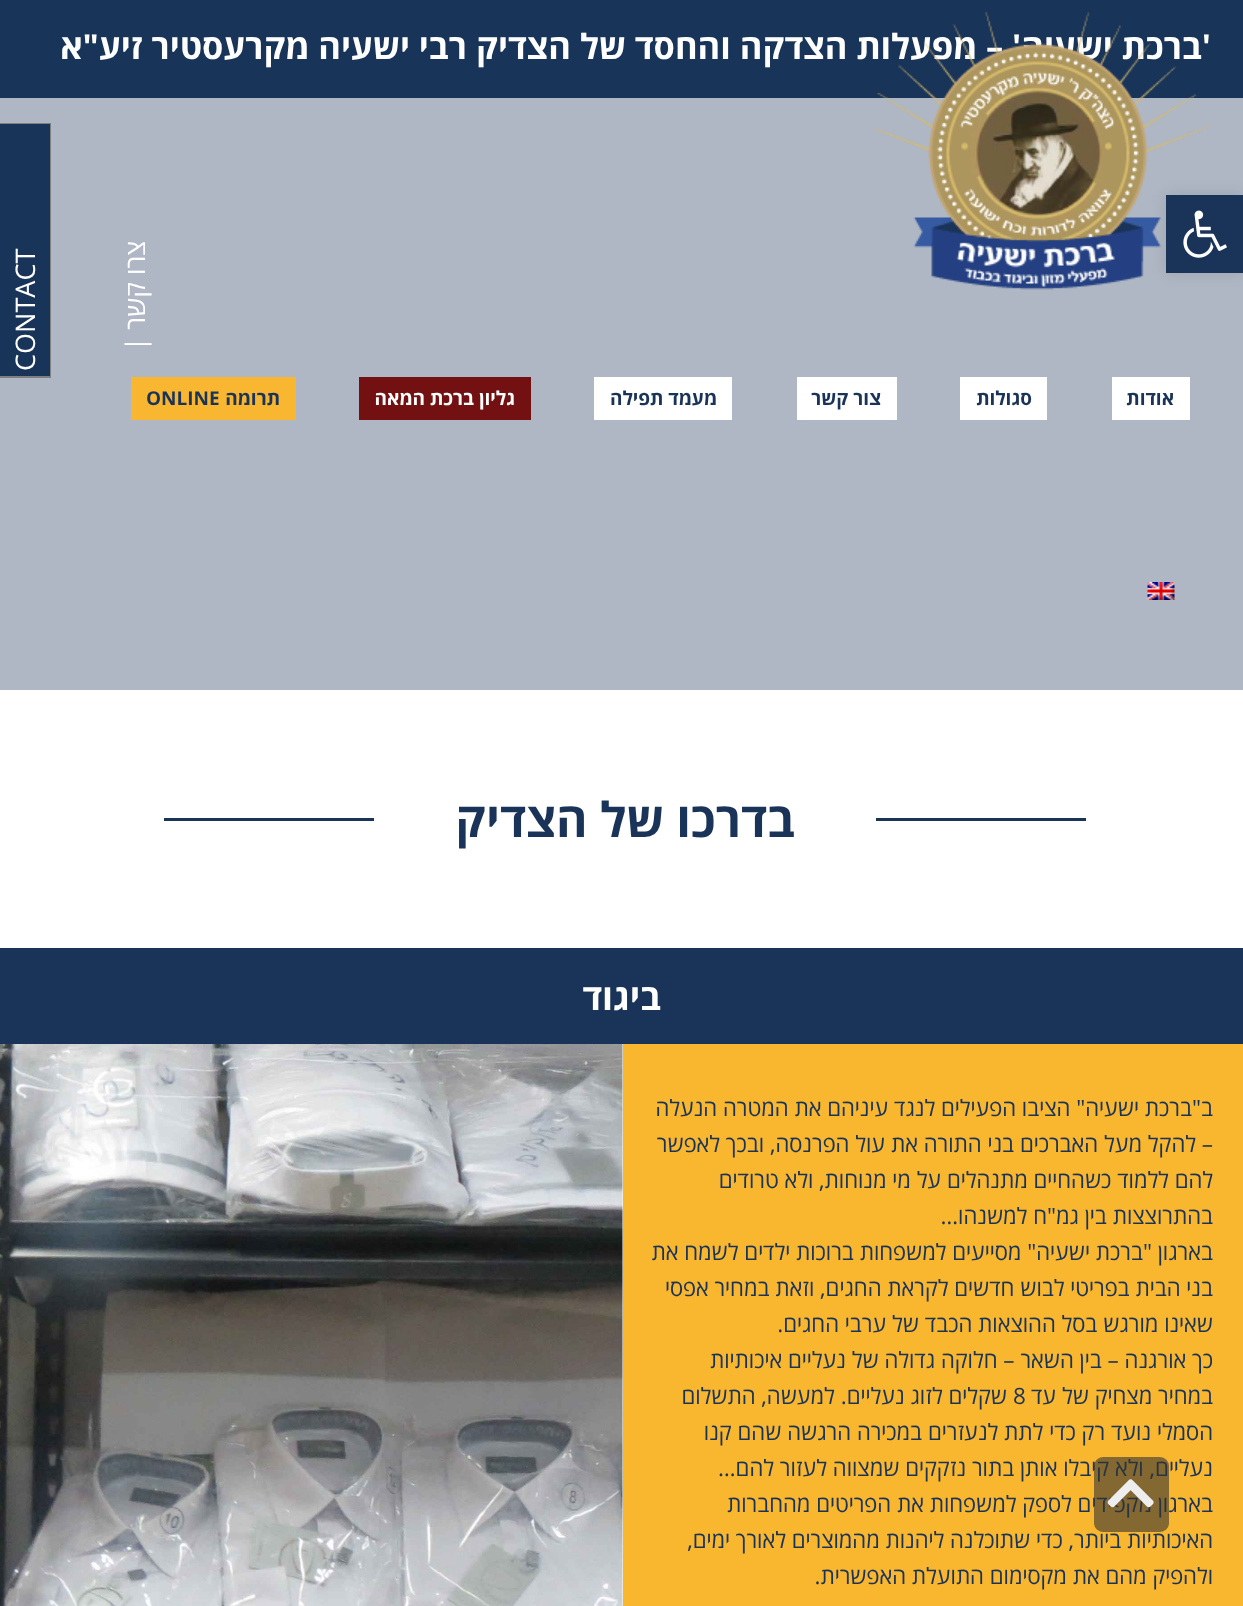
<svg xmlns="http://www.w3.org/2000/svg" width="1243" height="1606">
	<rect width="100%" height="100%" fill="#193459" />
	<text x="1211" y="59" font-family="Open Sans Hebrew" font-size="34.5" font-weight="700" direction="rtl" fill="#FFFFFF">'ברכת ישעיה' – מפעלות הצדקה והחסד של הצדיק רבי ישעיה מקרעסטיר זיע"א</text>
	<rect x="0" y="98" width="1243" height="592" fill="#AFB7C4" />
	<image x="874" y="11" width="338" height="279" href="assets/img1.png" />
	<rect x="1112" y="377" width="78" height="43" fill="#FFFFFF" />
	<text x="1174" y="405" font-family="Open Sans Hebrew" font-size="19" font-weight="700" direction="rtl" fill="#1A3459">אודות</text>
	<rect x="960" y="377" width="87" height="43" fill="#FFFFFF" />
	<text x="1032" y="405" font-family="Open Sans Hebrew" font-size="19" font-weight="700" direction="rtl" fill="#1A3459">סגולות</text>
	<rect x="797" y="377" width="100" height="43" fill="#FFFFFF" />
	<text x="881" y="405" font-family="Open Sans Hebrew" font-size="19" font-weight="700" direction="rtl" fill="#1A3459">צור קשר</text>
	<rect x="594" y="377" width="138" height="43" fill="#FFFFFF" />
	<text x="717" y="405" font-family="Open Sans Hebrew" font-size="19" font-weight="700" direction="rtl" fill="#1A3459">מעמד תפילה</text>
	<rect x="359" y="377" width="172" height="43" fill="#731112" />
	<text x="515" y="405" font-family="Open Sans Hebrew" font-size="19" font-weight="700" direction="rtl" fill="#FFFFFF">גליון ברכת המאה</text>
	<rect x="131" y="377" width="165" height="43" fill="#F9B630" />
	<text x="280" y="405" font-family="Open Sans Hebrew" font-size="19" font-weight="700" direction="rtl" fill="#1A3459">תרומה</text>
	<text x="146" y="405" font-family="Open Sans Hebrew" font-size="19" font-weight="700" fill="#1A3459">ONLINE</text>
	<image x="1147" y="582" width="28" height="18" href="assets/img2.png" />
	<rect x="0" y="690" width="1243" height="916" fill="#FFFFFF" />
	<rect x="876" y="818" width="210" height="3" fill="#1A3459" />
	<text x="795" y="837" font-family="Open Sans Hebrew" font-size="48" font-weight="700" direction="rtl" fill="#1A3459">בדרכו של הצדיק</text>
	<rect x="164" y="818" width="210" height="3" fill="#1A3459" />
	<rect x="0" y="948" width="1243" height="96" fill="#1A3459" />
	<text x="661" y="1010" font-family="Open Sans Hebrew" font-size="36" font-weight="700" direction="rtl" fill="#FFFFFF">ביגוד</text>
	<rect x="623" y="1044" width="620" height="562" fill="#F9B62F" />
	<g font-family="Open Sans Hebrew" font-size="22.5" direction="rtl" fill="#1A3459">
		<text x="1213" y="1116">ב"ברכת ישעיה" הציבו הפעילים לנגד עיניהם את המטרה הנעלה</text>
		<text x="1213" y="1152">– להקל מעל האברכים בני התורה את עול הפרנסה, ובכך לאפשר</text>
		<text x="1213" y="1188">להם ללמוד כשהחיים מתנהלים על מי מנוחות, ולא טרודים</text>
		<text x="1213" y="1224">בהתרוצצות בין גמ"ח למשנהו…</text>
		<text x="1213" y="1260">בארגון "ברכת ישעיה" מסייעים למשפחות ברוכות ילדים לשמח את</text>
		<text x="1213" y="1296">בני הבית בפריטי לבוש חדשים לקראת החגים, וזאת במחיר אפסי</text>
		<text x="1213" y="1332">שאינו מורגש בסל ההוצאות הכבד של ערבי החגים.</text>
		<text x="1213" y="1368">כך אורגנה – בין השאר – חלוקה גדולה של נעליים איכותיות</text>
		<text x="1213" y="1404">במחיר מצחיק של עד</text>
	</g>
	<text x="1013" y="1404" font-family="Open Sans Hebrew" font-size="22.5" fill="#1A3459">8</text>
	<g font-family="Open Sans Hebrew" font-size="22.5" direction="rtl" fill="#1A3459">
		<text x="1007" y="1404">שקלים לזוג נעליים. למעשה, התשלום</text>
		<text x="1213" y="1440">הסמלי נועד רק כדי לתת לנעזרים במכירה הרגשה שהם קנו</text>
		<text x="1213" y="1476">נעליים, ולא קיבלו אותן בתור נזקקים שמצווה לעזור להם…</text>
		<text x="1213" y="1512">בארגון מקפידים לספק למשפחות את הפריטים מהחברות</text>
		<text x="1213" y="1548">האיכותיות ביותר, כדי שתוכלנה ליהנות מהמוצרים לאורך ימים,</text>
		<text x="1213" y="1584">ולהפיק מהם את מקסימום התועלת האפשרית.</text>
	</g>
	<image x="0" y="1044" width="623" height="562" href="assets/img3.png" />
	<rect x="0" y="124" width="50" height="252" fill="#193459" />
	<rect x="0" y="123" width="51" height="1" fill="#7F7F7F" />
	<rect x="50" y="123" width="1" height="255" fill="#7F7F7F" />
	<rect x="0" y="376" width="51" height="2" fill="#7F7F7F" />
	<text x="145" y="241" transform="rotate(-90 145 241)" font-family="Open Sans Hebrew" font-size="27" direction="rtl" fill="#FFFFFF">צרו קשר |</text>
	<text x="35" y="371" transform="rotate(-90 35 371)" font-family="Open Sans Hebrew" font-size="27" fill="#FFFFFF">CONTACT</text>
	<rect x="1166" y="195" width="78" height="78" fill="#000000" fill-opacity="0.1" filter="blur(7.5px)" />
	<rect x="1166" y="195" width="77" height="78" fill="#1A3459" />
	<image x="1183" y="210" width="44" height="48" href="assets/img4.png" />
	<rect x="1094" y="1457" width="75" height="75" rx="9" fill="#333333" fill-opacity="0.6" />
	<image x="1107" y="1479" width="47" height="29" href="assets/img5.png" />
</svg>
